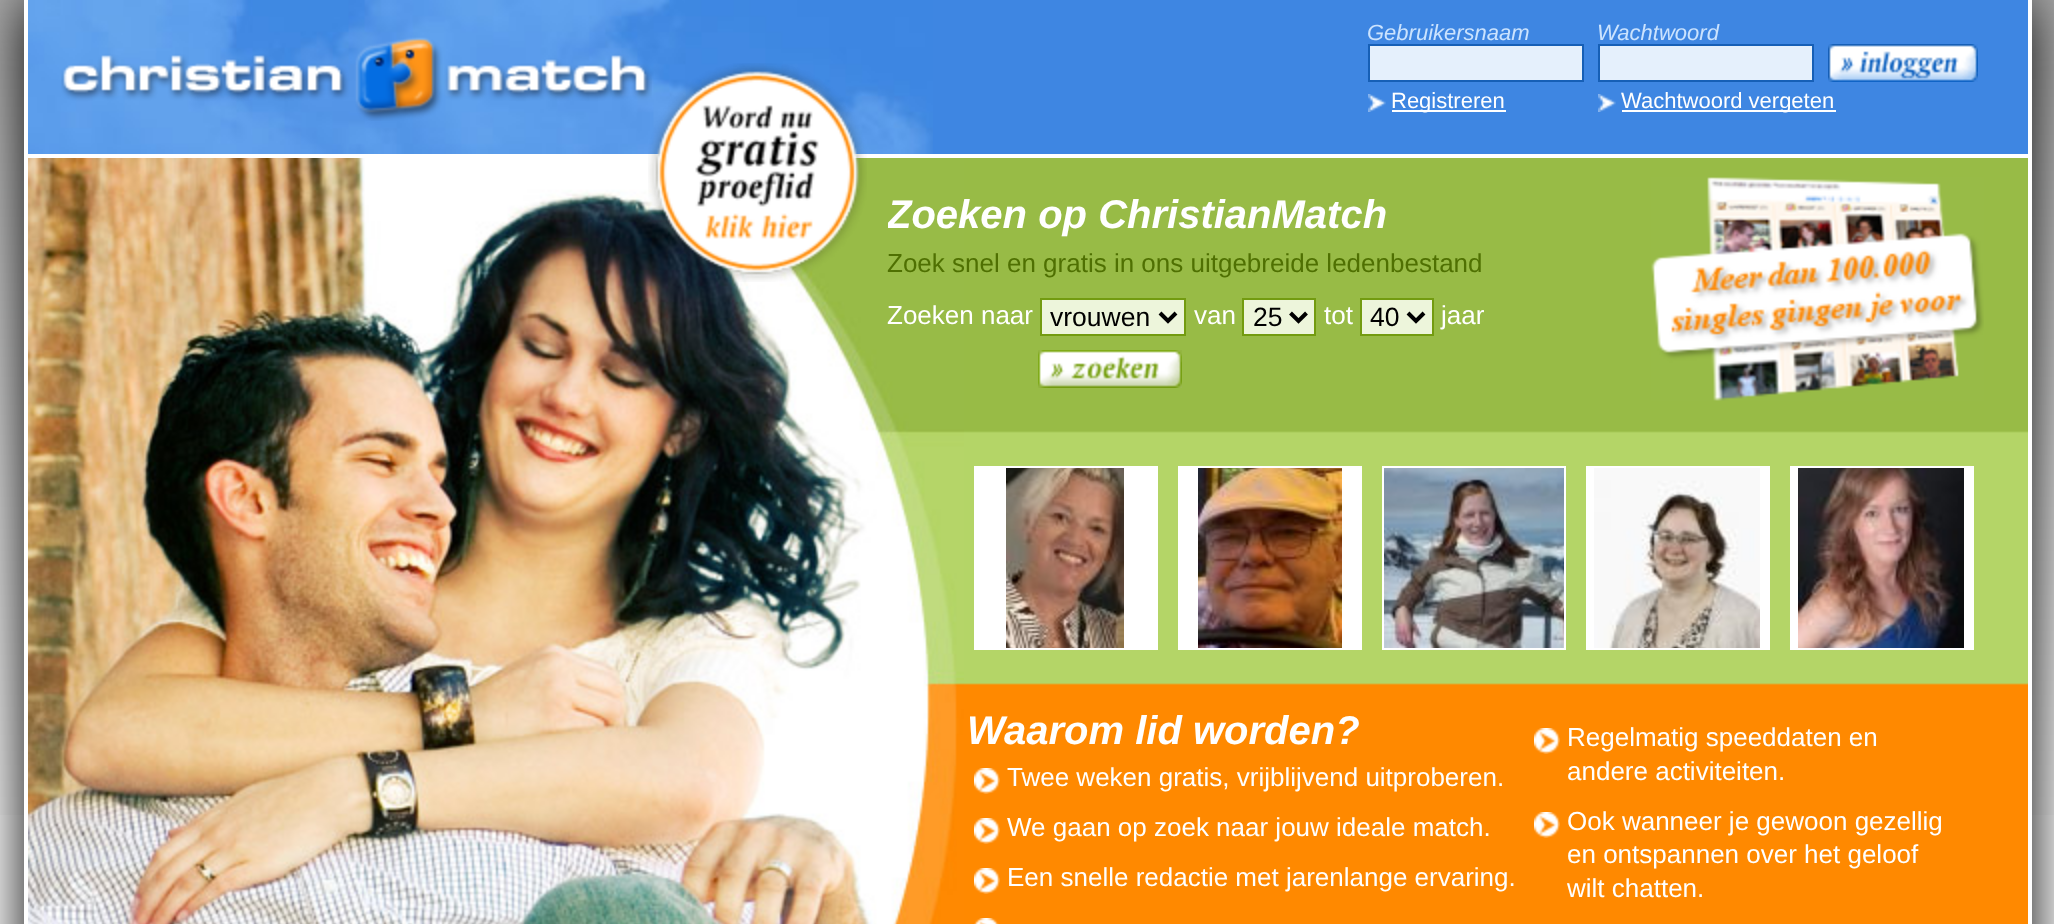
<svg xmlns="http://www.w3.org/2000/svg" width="2054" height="924">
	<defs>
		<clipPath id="clip1"><rect x="888" y="158" width="596" height="274" /></clipPath>
	</defs>
	<rect width="100%" height="100%" fill="#FFFFFF" />
	<image x="0" y="0" width="2054" height="815" href="assets/img1.png" />
	<rect x="24" y="0" width="2008" height="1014" fill="#000000" filter="blur(30px)" />
	<rect x="2028" y="0" width="4" height="924" fill="#FFFFFF" />
	<rect x="24" y="0" width="4" height="924" fill="#FFFFFF" />
	<image x="28" y="0" width="905" height="154" href="assets/img3.png" />
	<rect x="28" y="154" width="2000" height="4" fill="#FFFFFF" />
	<image x="61" y="37" width="591" height="84" href="assets/img4.png" />
	<image x="28" y="158" width="936" height="766" href="assets/img8.png" />
	<image x="648" y="63" width="219" height="219" href="assets/img2.png" />
	<rect x="933" y="0" width="1095" height="154" fill="#3E86E2" />
	<text x="1367" y="40" font-family="Liberation Sans" font-size="22" font-style="italic" fill="#CBE3FE">Gebruikersnaam</text>
	<rect x="1369" y="45" width="214" height="36" fill="#E5F0FC" stroke="#165FB6" stroke-width="2" />
	<text x="1597" y="40" font-family="Liberation Sans" font-size="22" font-style="italic" fill="#CBE3FE">Wachtwoord</text>
	<rect x="1599" y="45" width="214" height="36" fill="#E5F0FC" stroke="#165FB6" stroke-width="2" />
	<image x="1828" y="44" width="150" height="38" href="assets/img5.png" />
	<image x="1368" y="94" width="18" height="18" href="assets/img6.png" />
	<rect x="1392" y="110" width="114" height="2" fill="#FFFFFF" />
	<text x="1391" y="108" font-family="Liberation Sans" font-size="22" fill="#FFFFFF">Registreren</text>
	<image x="1598" y="94" width="18" height="18" href="assets/img6.png" />
	<rect x="1622" y="110" width="214" height="2" fill="#FFFFFF" />
	<text x="1621" y="108" font-family="Liberation Sans" font-size="22" fill="#FFFFFF">Wachtwoord vergeten</text>
	<image x="964" y="158" width="1064" height="766" href="assets/img7.png" />
	<g clip-path="url(#clip1)">
		<text x="887" y="228" font-family="Liberation Sans" font-size="40" font-weight="700" font-style="italic" fill="#FFFFFF">Zoeken op ChristianMatch</text>
	</g>
	<text x="887" y="272" font-family="Liberation Sans" font-size="26" fill="#4F7002">Zoek snel en gratis in ons uitgebreide ledenbestand</text>
	<text x="887" y="324" font-family="Liberation Sans" font-size="26" fill="#FFFFFF">Zoeken naar</text>
	<rect x="1041" y="299" width="144" height="36" fill="#EDF5DB" stroke="#739B10" stroke-width="2" />
	<path d="M1160 313L1168 321L1176 313" fill="none" stroke="#000000" stroke-width="4" />
	<text x="1050" y="326" font-family="Liberation Sans" font-size="26.5" fill="#000000">vrouwen</text>
	<text x="1194" y="324" font-family="Liberation Sans" font-size="26" fill="#FFFFFF">van</text>
	<rect x="1243" y="299" width="72" height="36" fill="#EDF5DB" stroke="#739B10" stroke-width="2" />
	<path d="M1290.5 313L1298.5 321L1306.5 313" fill="none" stroke="#000000" stroke-width="4" />
	<text x="1253" y="326" font-family="Liberation Sans" font-size="26.5" fill="#000000">25</text>
	<text x="1324" y="324" font-family="Liberation Sans" font-size="26" fill="#FFFFFF">tot</text>
	<rect x="1361" y="299" width="72" height="36" fill="#EDF5DB" stroke="#739B10" stroke-width="2" />
	<path d="M1408 313L1416 321L1424 313" fill="none" stroke="#000000" stroke-width="4" />
	<text x="1370" y="326" font-family="Liberation Sans" font-size="26.5" fill="#000000">40</text>
	<text x="1441" y="324" font-family="Liberation Sans" font-size="26" fill="#FFFFFF">jaar</text>
	<image x="1038" y="350" width="144" height="38" href="assets/img9.png" />
	<image x="1651" y="177" width="333" height="224" href="assets/img10.png" />
	<rect x="975" y="467" width="182" height="182" fill="none" stroke="#FFFFFF" stroke-width="2" />
	<rect x="976" y="468" width="180" height="180" fill="#FFFFFF" />
	<image x="1006" y="468" width="118" height="180" href="assets/img11.png" />
	<rect x="1179" y="467" width="182" height="182" fill="none" stroke="#FFFFFF" stroke-width="2" />
	<rect x="1180" y="468" width="180" height="180" fill="#FFFFFF" />
	<image x="1198" y="468" width="144" height="180" href="assets/img12.png" />
	<rect x="1383" y="467" width="182" height="182" fill="none" stroke="#FFFFFF" stroke-width="2" />
	<image x="1384" y="468" width="180" height="180" href="assets/img13.png" />
	<rect x="1587" y="467" width="182" height="182" fill="none" stroke="#FFFFFF" stroke-width="2" />
	<rect x="1588" y="468" width="180" height="180" fill="#FFFFFF" />
	<image x="1594" y="468" width="166" height="180" href="assets/img14.png" />
	<rect x="1791" y="467" width="182" height="182" fill="none" stroke="#FFFFFF" stroke-width="2" />
	<rect x="1792" y="468" width="180" height="180" fill="#FFFFFF" />
	<image x="1798" y="468" width="166" height="180" href="assets/img15.png" />
	<text x="967" y="744" font-family="Liberation Sans" font-size="40" font-weight="700" font-style="italic" fill="#FFFFFF">Waarom lid worden?</text>
	<image x="1534" y="728" width="26" height="26" href="assets/img16.png" />
	<g font-family="Liberation Sans" font-size="26" fill="#FFFFFF">
		<text x="1567" y="746">Regelmatig speeddaten en</text>
		<text x="1567" y="780">andere activiteiten.</text>
	</g>
	<image x="1534" y="812" width="26" height="26" href="assets/img16.png" />
	<g font-family="Liberation Sans" font-size="26" fill="#FFFFFF">
		<text x="1567" y="830">Ook wanneer je gewoon gezellig</text>
		<text x="1567" y="863">en ontspannen over het geloof</text>
		<text x="1567" y="897">wilt chatten.</text>
	</g>
	<image x="974" y="768" width="26" height="26" href="assets/img16.png" />
	<text x="1007" y="786" font-family="Liberation Sans" font-size="26" fill="#FFFFFF">Twee weken gratis, vrijblijvend uitproberen.</text>
	<image x="974" y="818" width="26" height="26" href="assets/img16.png" />
	<text x="1007" y="836" font-family="Liberation Sans" font-size="26" fill="#FFFFFF">We gaan op zoek naar jouw ideale match.</text>
	<image x="974" y="868" width="26" height="26" href="assets/img16.png" />
	<text x="1007" y="886" font-family="Liberation Sans" font-size="26" fill="#FFFFFF">Een snelle redactie met jarenlange ervaring.</text>
	<image x="974" y="918" width="25" height="6" href="assets/img17.png" />
</svg>
